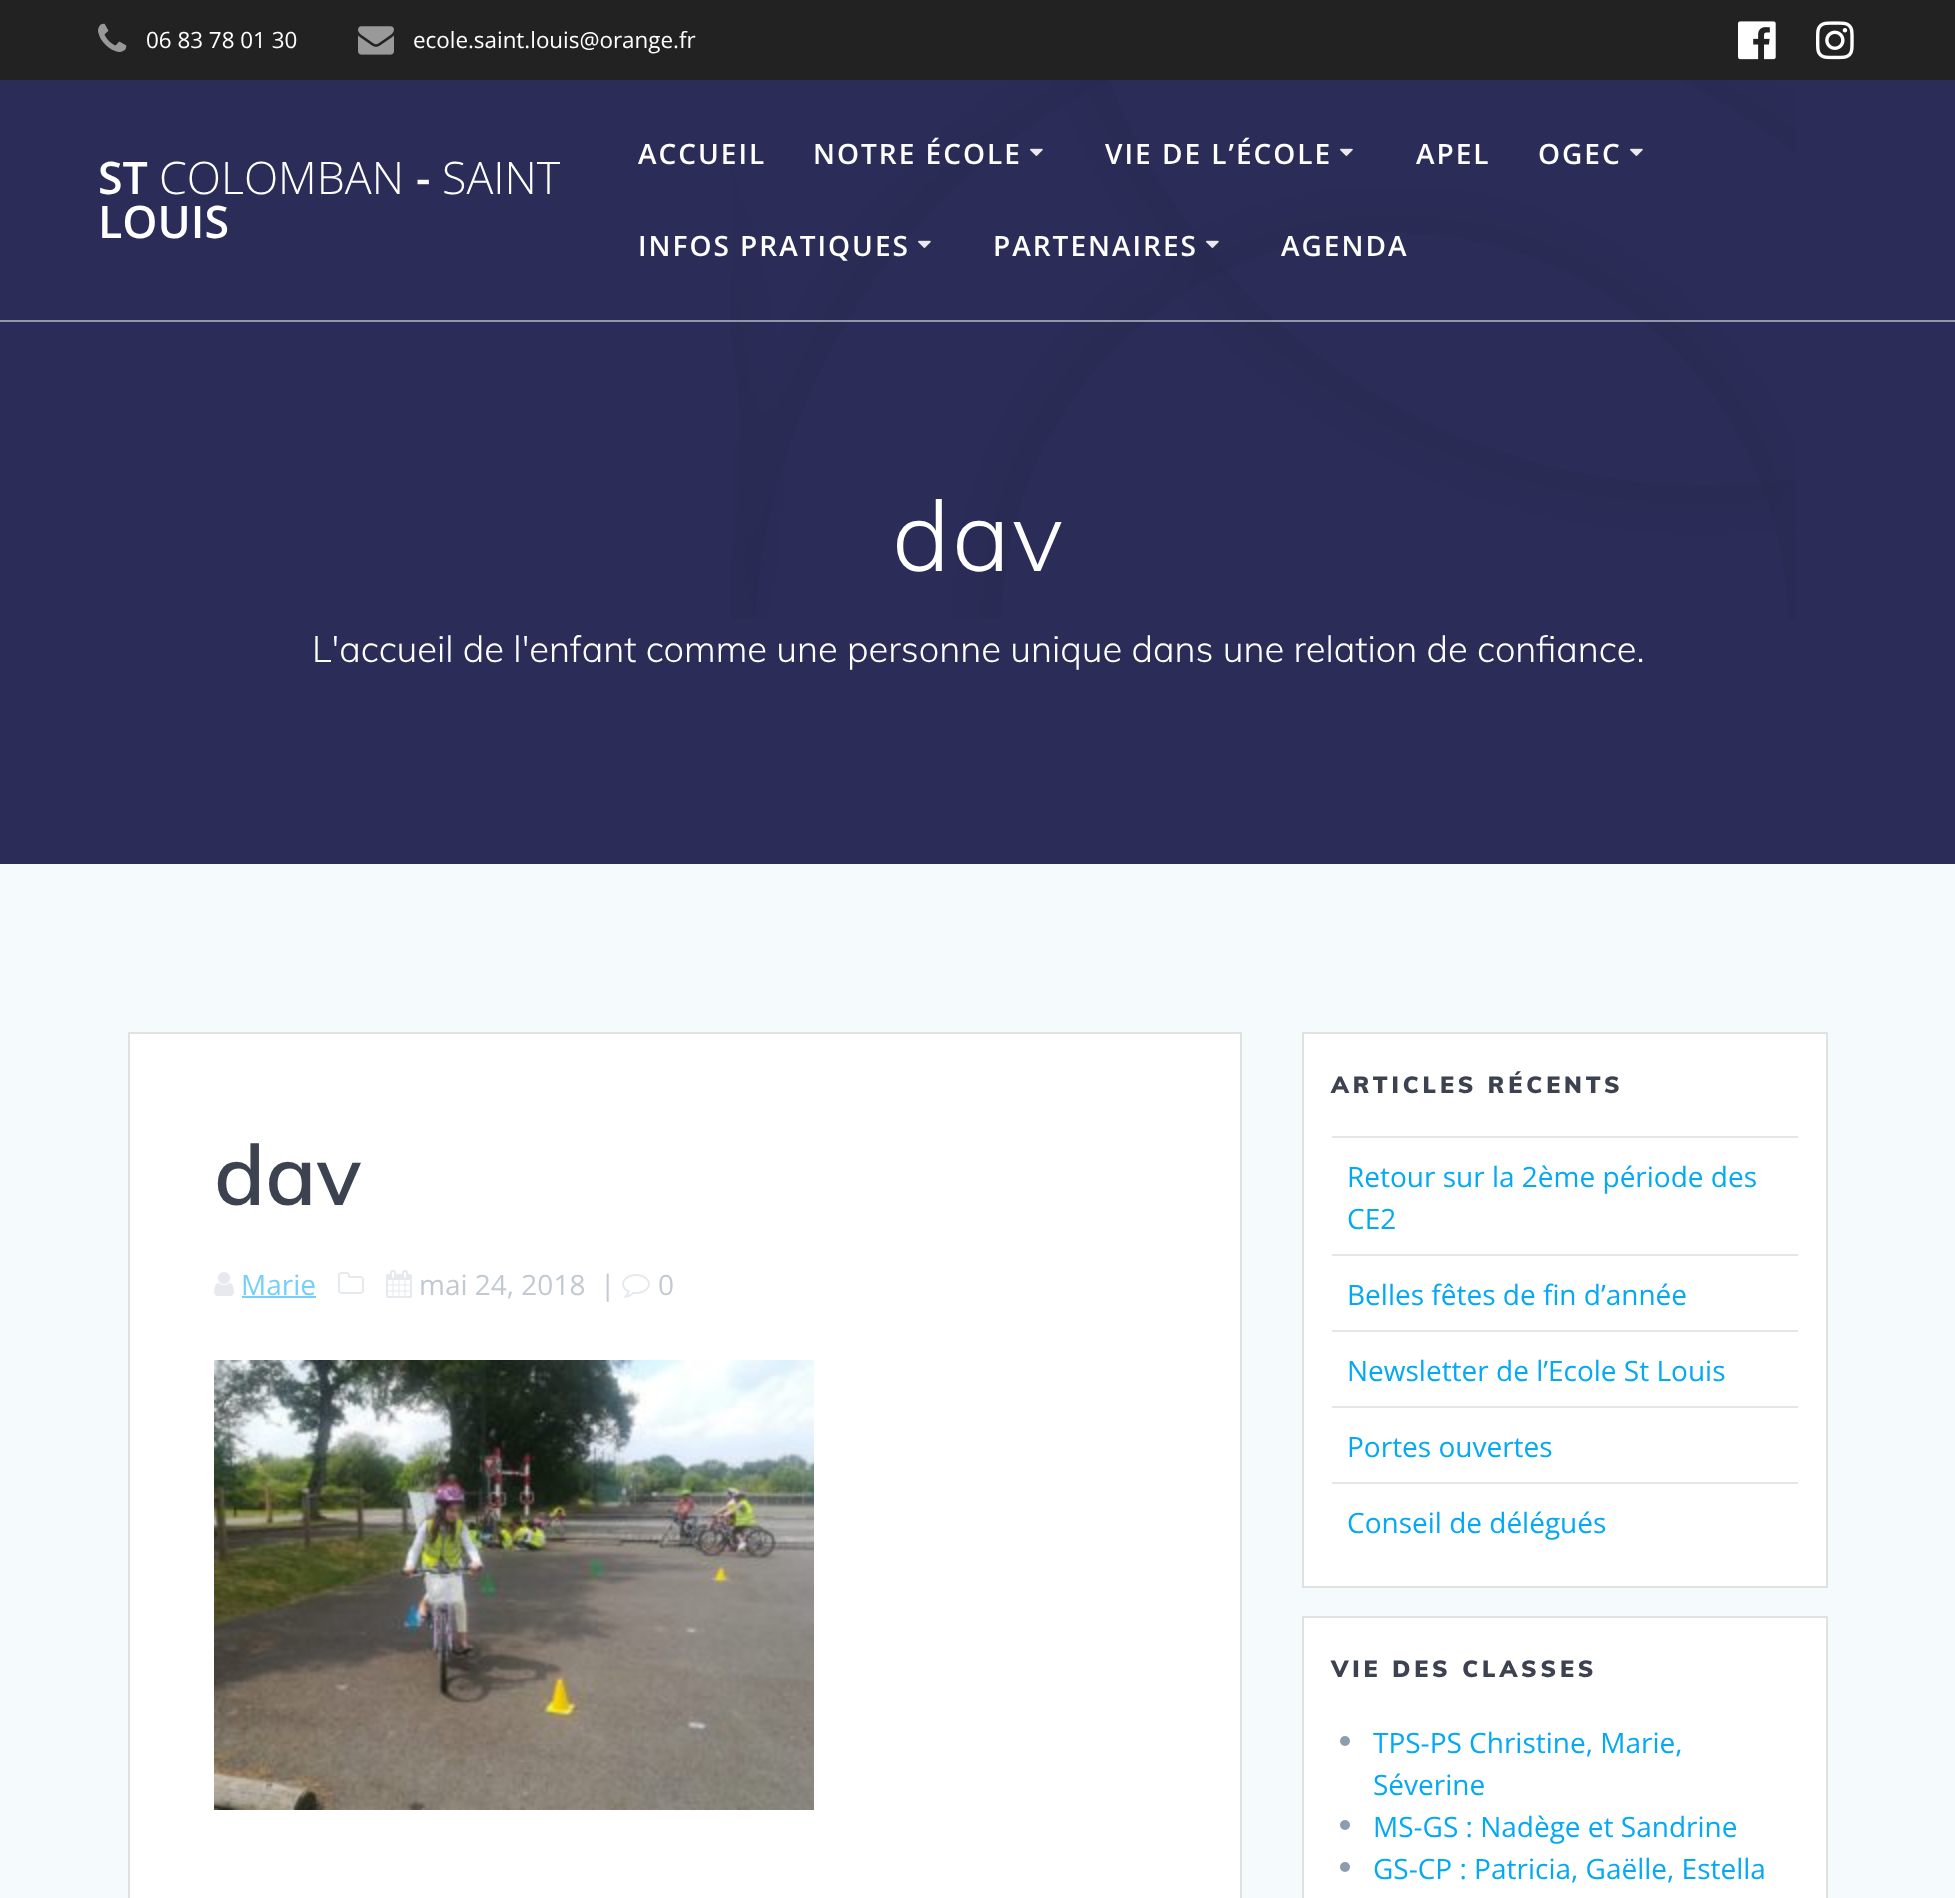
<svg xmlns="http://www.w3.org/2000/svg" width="1955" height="1898">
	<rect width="100%" height="100%" fill="#2B2D58" />
	<rect x="0" y="0" width="1955" height="80" fill="#222222" />
	<image x="98" y="23" width="29" height="29" href="assets/img1.png" />
	<text x="146" y="48" font-family="Open Sans" font-size="22.4" fill="#FFFFFF">06 83 78 01 30</text>
	<image x="358" y="26" width="36" height="29" href="assets/img2.png" />
	<text x="413" y="48" font-family="Open Sans" font-size="22.4" fill="#FFFFFF">ecole.saint.louis@orange.fr</text>
	<image x="1738" y="21" width="38" height="39" href="assets/img3.png" />
	<image x="1816" y="21" width="38" height="39" href="assets/img4.png" />
	<image x="731" y="80" width="1065" height="539" href="assets/img7.png" />
	<rect x="0" y="320" width="1955" height="2" fill="#FFFFFF" fill-opacity="0.5" />
	<text x="98" y="194" font-family="Open Sans" font-size="44.75" font-weight="600" fill="#FFFFFF">ST</text>
	<text x="159" y="194" font-family="Open Sans" font-size="44.75" font-weight="300" fill="#FFFFFF">COLOMBAN</text>
	<text x="416" y="194" font-family="Open Sans" font-size="44.75" font-weight="600" fill="#FFFFFF">-</text>
	<text x="442" y="194" font-family="Open Sans" font-size="44.75" font-weight="300" fill="#FFFFFF">SAINT</text>
	<text x="98" y="238" font-family="Open Sans" font-size="44.75" font-weight="600" fill="#FFFFFF">LOUIS</text>
	<g font-family="Open Sans" font-size="28" font-weight="600" letter-spacing="2" fill="#FFFFFF">
		<text x="638" y="164">ACCUEIL</text>
		<text x="813" y="164">NOTRE ÉCOLE</text>
	</g>
	<image x="1030" y="148" width="13" height="8" href="assets/img5.png" />
	<text x="1105" y="164" font-family="Open Sans" font-size="28" font-weight="600" letter-spacing="2" fill="#FFFFFF">VIE DE L’ÉCOLE</text>
	<image x="1340" y="148" width="13" height="8" href="assets/img5.png" />
	<g font-family="Open Sans" font-size="28" font-weight="600" letter-spacing="2" fill="#FFFFFF">
		<text x="1416" y="164">APEL</text>
		<text x="1538" y="164">OGEC</text>
	</g>
	<image x="1630" y="148" width="13" height="8" href="assets/img5.png" />
	<text x="638" y="256" font-family="Open Sans" font-size="28" font-weight="600" letter-spacing="2" fill="#FFFFFF">INFOS PRATIQUES</text>
	<image x="918" y="240" width="13" height="8" href="assets/img5.png" />
	<text x="993" y="256" font-family="Open Sans" font-size="28" font-weight="600" letter-spacing="2" fill="#FFFFFF">PARTENAIRES</text>
	<image x="1206" y="240" width="13" height="8" href="assets/img6.png" />
	<text x="1281" y="256" font-family="Open Sans" font-size="28" font-weight="600" letter-spacing="2" fill="#FFFFFF">AGENDA</text>
	<text x="892" y="571" font-family="Muli" font-size="98" font-weight="300" letter-spacing="2" fill="#FFFFFF">dav</text>
	<text x="312" y="662" font-family="Muli" font-size="36.4" font-weight="300" fill="#FFFFFF">L'accueil de l'enfant comme une personne unique dans une relation de confiance.</text>
	<rect x="0" y="864" width="1955" height="1034" fill="#F5FAFD" />
	<rect x="129" y="1033" width="1112" height="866" fill="#FFFFFF" stroke="#E0E1E1" stroke-width="2" />
	<text x="214" y="1205" font-family="Muli" font-size="84" font-weight="600" fill="#3C424F">dav</text>
	<image x="214" y="1272" width="20" height="24" href="assets/img8.png" />
	<text x="241" y="1295" font-family="Open Sans" font-size="28" fill="#74D0F9">Marie</text>
	<rect x="242" y="1296" width="74" height="2" fill="#74D0F9" />
	<image x="338" y="1272" width="26" height="22" href="assets/img9.png" />
	<image x="386" y="1270" width="26" height="28" href="assets/img10.png" />
	<g font-family="Open Sans" font-size="28" fill="#C1C9D2">
		<text x="419" y="1295">mai 24, 2018</text>
		<text x="600" y="1295">|</text>
	</g>
	<image x="622" y="1274" width="28" height="24" href="assets/img11.png" />
	<text x="658" y="1295" font-family="Open Sans" font-size="28" fill="#C1C9D2">0</text>
	<image x="214" y="1360" width="600" height="450" href="assets/img12.png" />
	<rect x="1303" y="1033" width="524" height="554" fill="#FFFFFF" stroke="#E0E1E1" stroke-width="2" />
	<text x="1331" y="1093" font-family="Muli" font-size="23.25" font-weight="900" letter-spacing="3.9" fill="#3C424F">ARTICLES RÉCENTS</text>
	<rect x="1332" y="1136" width="466" height="2" fill="#E6E6E6" />
	<g font-family="Open Sans" font-size="28" fill="#03A9F4">
		<text x="1347" y="1187">Retour sur la 2ème période des</text>
		<text x="1347" y="1229">CE2</text>
	</g>
	<rect x="1332" y="1254" width="466" height="2" fill="#E6E6E6" />
	<text x="1347" y="1305" font-family="Open Sans" font-size="28" fill="#03A9F4">Belles fêtes de fin d’année</text>
	<rect x="1332" y="1330" width="466" height="2" fill="#E6E6E6" />
	<text x="1347" y="1381" font-family="Open Sans" font-size="28" fill="#03A9F4">Newsletter de l’Ecole St Louis</text>
	<rect x="1332" y="1406" width="466" height="2" fill="#E6E6E6" />
	<text x="1347" y="1457" font-family="Open Sans" font-size="28" fill="#03A9F4">Portes ouvertes</text>
	<rect x="1332" y="1482" width="466" height="2" fill="#E6E6E6" />
	<text x="1347" y="1533" font-family="Open Sans" font-size="28" fill="#03A9F4">Conseil de délégués</text>
	<rect x="1303" y="1617" width="524" height="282" fill="#FFFFFF" stroke="#E0E1E1" stroke-width="2" />
	<text x="1331" y="1677" font-family="Muli" font-size="23.25" font-weight="900" letter-spacing="3.9" fill="#3C424F">VIE DES CLASSES</text>
	<circle cx="1345" cy="1741" r="5" fill="#8E9DAE" />
	<g font-family="Open Sans" font-size="28" fill="#03A9F4">
		<text x="1373" y="1753">TPS-PS Christine, Marie,</text>
		<text x="1373" y="1795">Séverine</text>
	</g>
	<circle cx="1345" cy="1825" r="5" fill="#8E9DAE" />
	<text x="1373" y="1837" font-family="Open Sans" font-size="28" fill="#03A9F4">MS-GS : Nadège et Sandrine</text>
	<circle cx="1345" cy="1867" r="5" fill="#8E9DAE" />
	<text x="1373" y="1879" font-family="Open Sans" font-size="28" fill="#03A9F4">GS-CP : Patricia, Gaëlle, Estella</text>
</svg>
